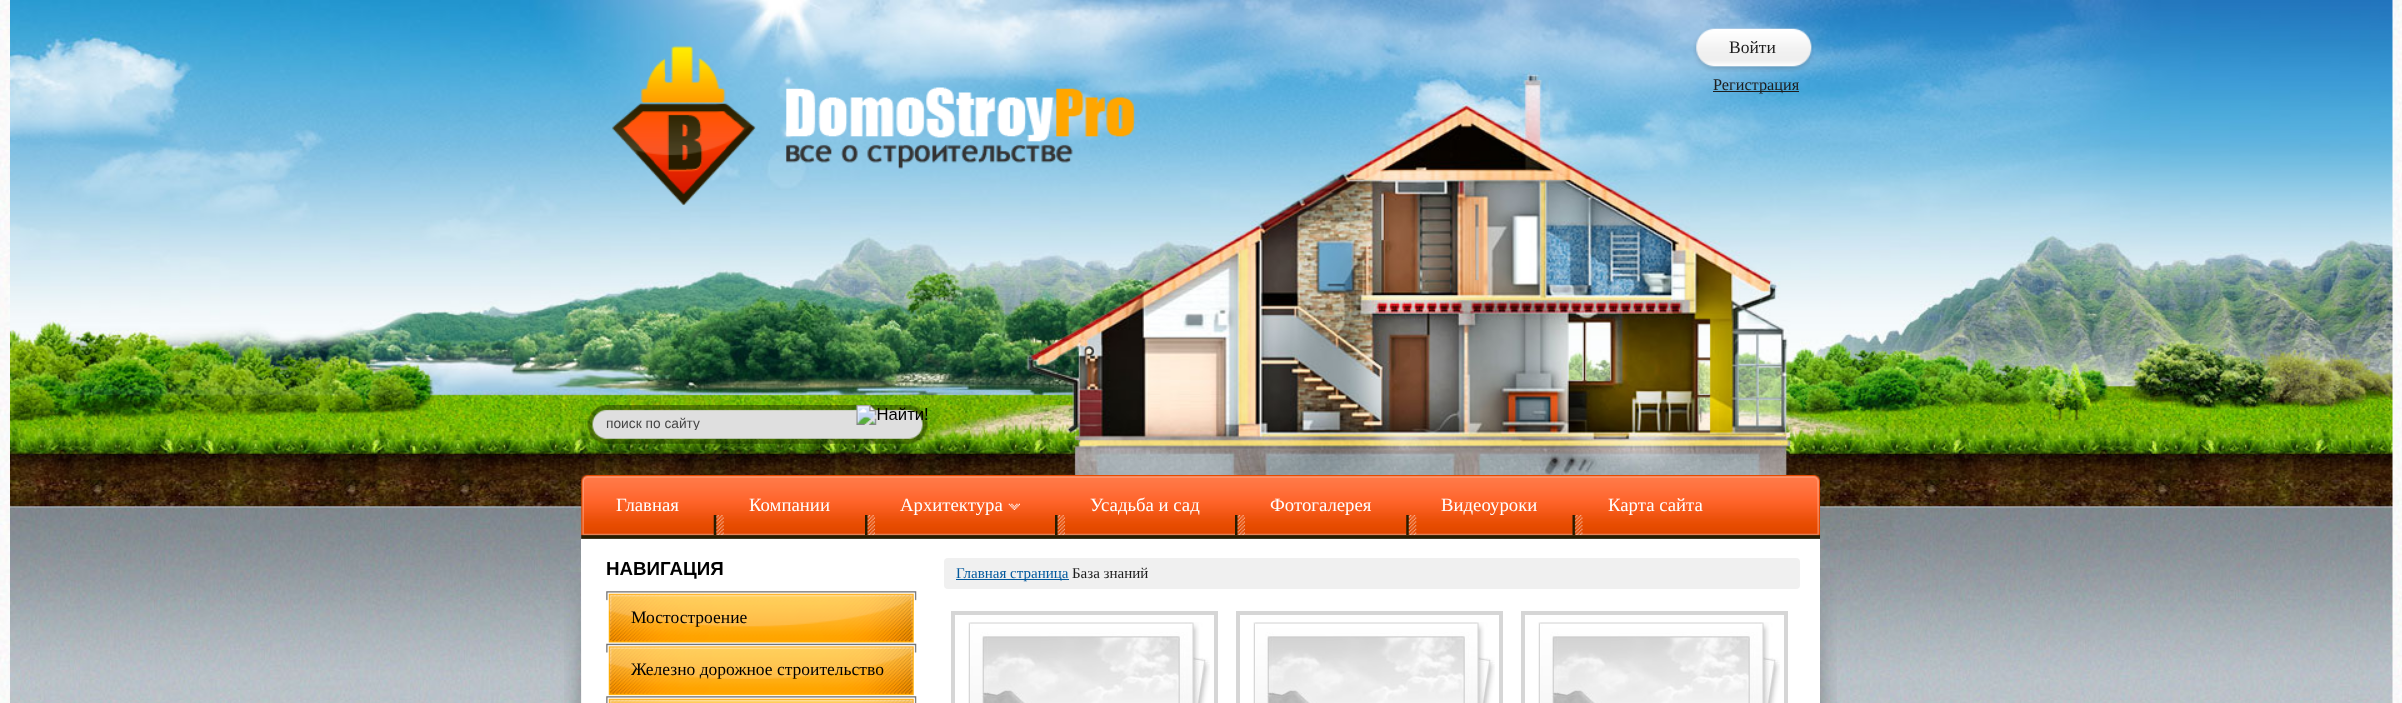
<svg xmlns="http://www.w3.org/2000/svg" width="2402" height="703">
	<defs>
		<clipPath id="clip1"><rect x="606" y="415" width="275" height="15" /></clipPath>
	</defs>
	<rect width="100%" height="100%" fill="#FFFFFF" />
	<image x="0" y="0" width="2402" height="703" href="assets/img1.png" />
	<image x="10" y="0" width="2383" height="703" href="assets/img2.png" />
	<image x="612" y="46" width="523" height="159" href="assets/img3.png" />
	<image x="1693" y="28" width="121" height="44" href="assets/img4.png" />
	<text x="1729" y="53" font-family="Liberation Serif" font-size="17.5" fill="#1D1D1D">Войти</text>
	<rect x="1713" y="91" width="86" height="1" fill="#1D1D1D" />
	<text x="1713" y="90" font-family="Liberation Serif" font-size="16.25" fill="#1D1D1D">Регистрация</text>
	<image x="587" y="405" width="341" height="39" href="assets/img5.png" />
	<g clip-path="url(#clip1)">
		<text x="606" y="428" font-family="Liberation Sans" font-size="13.75" fill="#464646">поиск по сайту</text>
	</g>
	<image x="856" y="405" width="72" height="20" href="assets/img6.png" />
	<image x="581" y="475" width="1239" height="64" href="assets/img7.png" />
	<text x="616" y="511" font-family="Liberation Serif" font-size="18.75" fill="#FFFFFF">Главная</text>
	<image x="713" y="515" width="11" height="20" href="assets/img8.png" />
	<text x="749" y="511" font-family="Liberation Serif" font-size="18.75" fill="#FFFFFF">Компании</text>
	<image x="865" y="515" width="10" height="20" href="assets/img9.png" />
	<text x="900" y="511" font-family="Liberation Serif" font-size="18.75" fill="#FFFFFF">Архитектура</text>
	<image x="1008" y="503" width="12" height="7" href="assets/img10.png" />
	<image x="1055" y="515" width="10" height="20" href="assets/img11.png" />
	<text x="1090" y="511" font-family="Liberation Serif" font-size="18.75" fill="#FFFFFF">Усадьба и сад</text>
	<image x="1235" y="515" width="10" height="20" href="assets/img9.png" />
	<text x="1270" y="511" font-family="Liberation Serif" font-size="18.75" fill="#FFFFFF">Фотогалерея</text>
	<image x="1406" y="515" width="11" height="20" href="assets/img12.png" />
	<text x="1441" y="511" font-family="Liberation Serif" font-size="18.75" fill="#FFFFFF">Видеоуроки</text>
	<image x="1572" y="515" width="11" height="20" href="assets/img13.png" />
	<text x="1608" y="511" font-family="Liberation Serif" font-size="18.75" fill="#FFFFFF">Карта сайта</text>
	<rect x="581" y="539" width="1239" height="164" fill="#FFFFFF" />
	<image x="564" y="572" width="18" height="131" href="assets/img14.png" />
	<text x="606" y="575" font-family="Liberation Sans" font-size="18.75" font-weight="700" fill="#000000">НАВИГАЦИЯ</text>
	<image x="606" y="591" width="311" height="52" href="assets/img15.png" />
	<text x="631" y="623" font-family="Liberation Serif" font-size="17.5" fill="#000000">Мостостроение</text>
	<image x="606" y="643" width="311" height="53" href="assets/img16.png" />
	<text x="631" y="675" font-family="Liberation Serif" font-size="17.5" fill="#000000">Железно дорожное строительство</text>
	<image x="606" y="696" width="311" height="7" href="assets/img17.png" />
	<rect x="944" y="558" width="856" height="31" rx="4" fill="#F0F0F0" />
	<rect x="956" y="579" width="113" height="1" fill="#02599D" />
	<text x="956" y="578" font-family="Liberation Serif" font-size="15" fill="#02599D">Главная страница</text>
	<text x="1072" y="578" font-family="Liberation Serif" font-size="15" fill="#1D1D1D">База знаний</text>
	<rect x="953" y="613" width="263" height="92" fill="none" stroke="#D6D6D6" stroke-width="4" />
	<image x="968" y="622" width="242" height="81" href="assets/img18.png" />
	<rect x="1238" y="613" width="263" height="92" fill="none" stroke="#D6D6D6" stroke-width="4" />
	<image x="1253" y="622" width="242" height="81" href="assets/img19.png" />
	<rect x="1523" y="613" width="263" height="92" fill="none" stroke="#D6D6D6" stroke-width="4" />
	<image x="1538" y="622" width="242" height="81" href="assets/img19.png" />
	<image x="1820" y="568" width="17" height="135" href="assets/img20.png" />
</svg>
